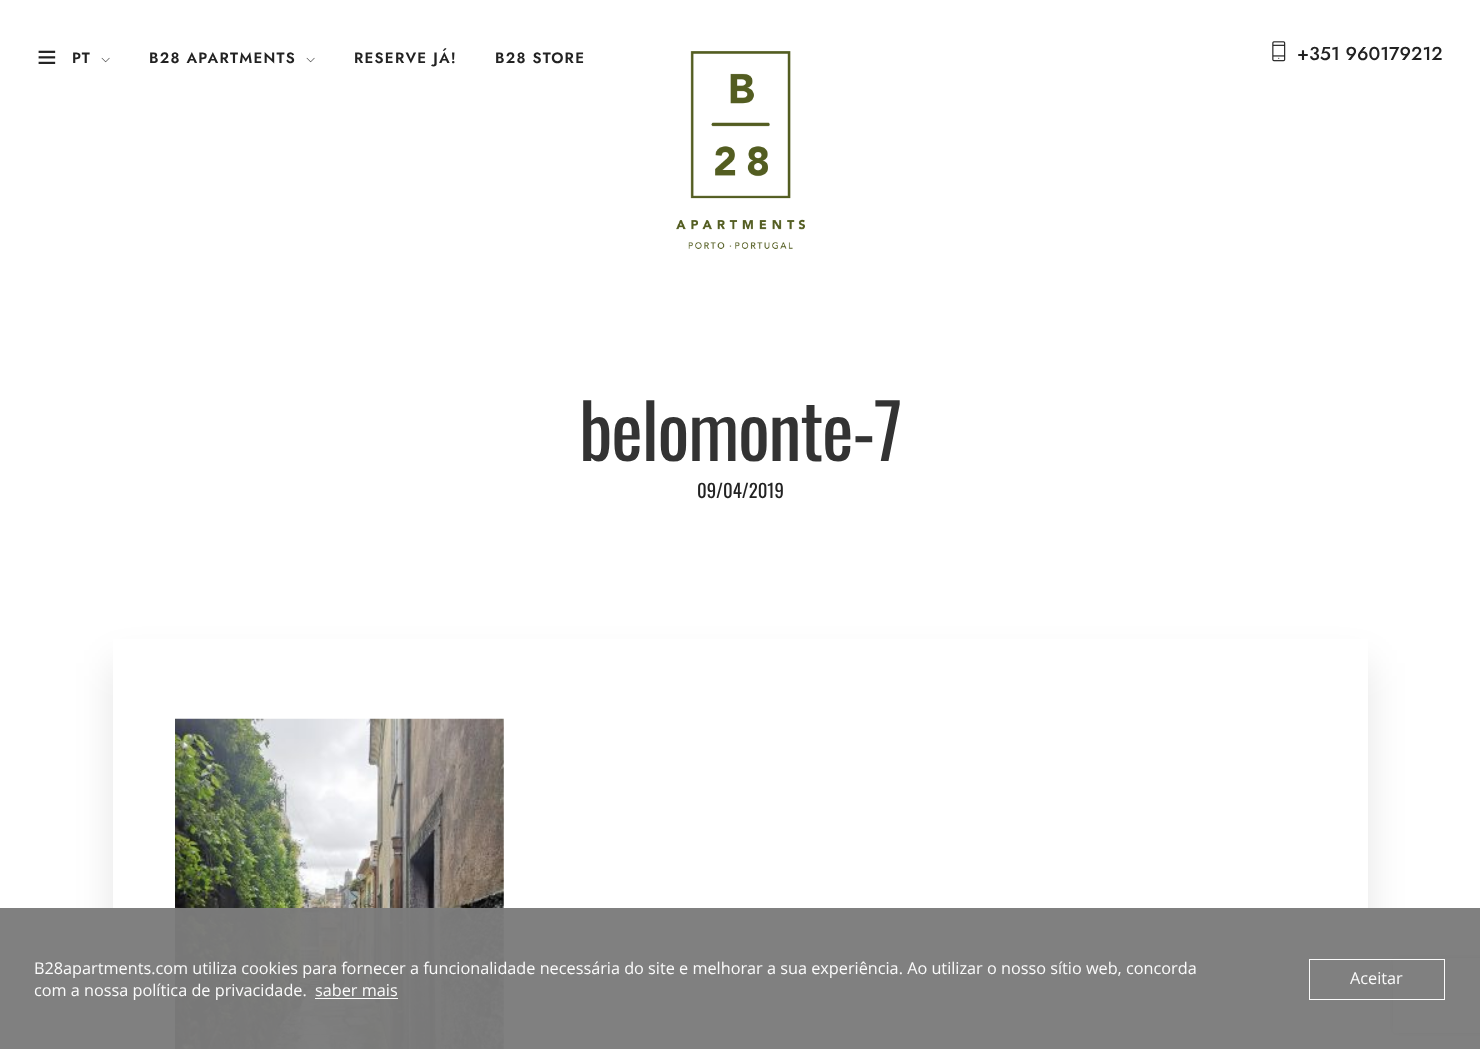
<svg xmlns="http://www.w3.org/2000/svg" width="1480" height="1049">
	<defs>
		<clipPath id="clip1"><path d="M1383 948H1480V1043H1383ZM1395.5 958H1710.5C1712 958 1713 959 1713 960.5V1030.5C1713 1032 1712 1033 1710.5 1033H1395.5C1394 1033 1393 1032 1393 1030.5V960.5C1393 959 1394 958 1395.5 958Z" clip-rule="evenodd" /></clipPath>
	</defs>
	<rect width="100%" height="100%" fill="#FFFFFF" />
	<image x="38" y="50" width="18" height="14" href="assets/img1.png" />
	<text x="72" y="63" font-family="Jost" font-size="15" font-weight="600" letter-spacing="1.25" fill="#222222">PT</text>
	<image x="101" y="57" width="9" height="6" href="assets/img2.png" />
	<text x="149" y="63" font-family="Jost" font-size="15" font-weight="600" letter-spacing="1.25" fill="#222222">B28 APARTMENTS</text>
	<image x="306" y="57" width="9" height="6" href="assets/img2.png" />
	<g font-family="Jost" font-size="15" font-weight="600" letter-spacing="1.25" fill="#222222">
		<text x="354" y="63">RESERVE JÁ!</text>
		<text x="495" y="63">B28 STORE</text>
	</g>
	<image x="676" y="51" width="129" height="198" href="assets/img3.png" />
	<image x="1272" y="41" width="14" height="21" href="assets/img4.png" />
	<text x="1297" y="60" font-family="Jost" font-size="18.75" font-weight="500" fill="#222222">+351 960179212</text>
	<text x="579" y="461" font-family="Oswald" font-size="75" letter-spacing="-1.25" fill="#333333">belomonte-7</text>
	<text x="697" y="498" font-family="Oswald" font-size="18.75" fill="#222222">09/04/2019</text>
	<rect x="113" y="663" width="1255" height="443" fill="#010101" fill-opacity="0.1" filter="blur(19px)" />
	<rect x="113" y="639" width="1255" height="410" fill="#FFFFFF" />
	<image x="175" y="718" width="329" height="331" href="assets/img5.png" />
	<g clip-path="url(#clip1)">
		<rect x="1393" y="958" width="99" height="75" rx="2.5" fill="#808080" filter="blur(3px)" />
	</g>
	<rect x="0" y="908" width="1480" height="141" fill="#7C7C7C" fill-opacity="0.97" />
	<g font-family="Open Sans" font-size="16.25" fill="#FBFBFB">
		<text x="34" y="974">B28apartments.com utiliza cookies para fornecer a funcionalidade necessária do site e melhorar a sua experiência. Ao utilizar o nosso sítio web, concorda</text>
		<text x="34" y="996">com a nossa política de privacidade.</text>
		<text x="315" y="996">saber mais</text>
	</g>
	<rect x="315" y="998" width="83" height="1" fill="#FFFFFF" fill-opacity="0.97" />
	<rect x="1309.5" y="959.5" width="135" height="40" fill="none" stroke="#FBFBFB" />
	<text x="1350" y="984" font-family="Open Sans" font-size="16.25" fill="#FBFBFB">Aceitar</text>
</svg>
